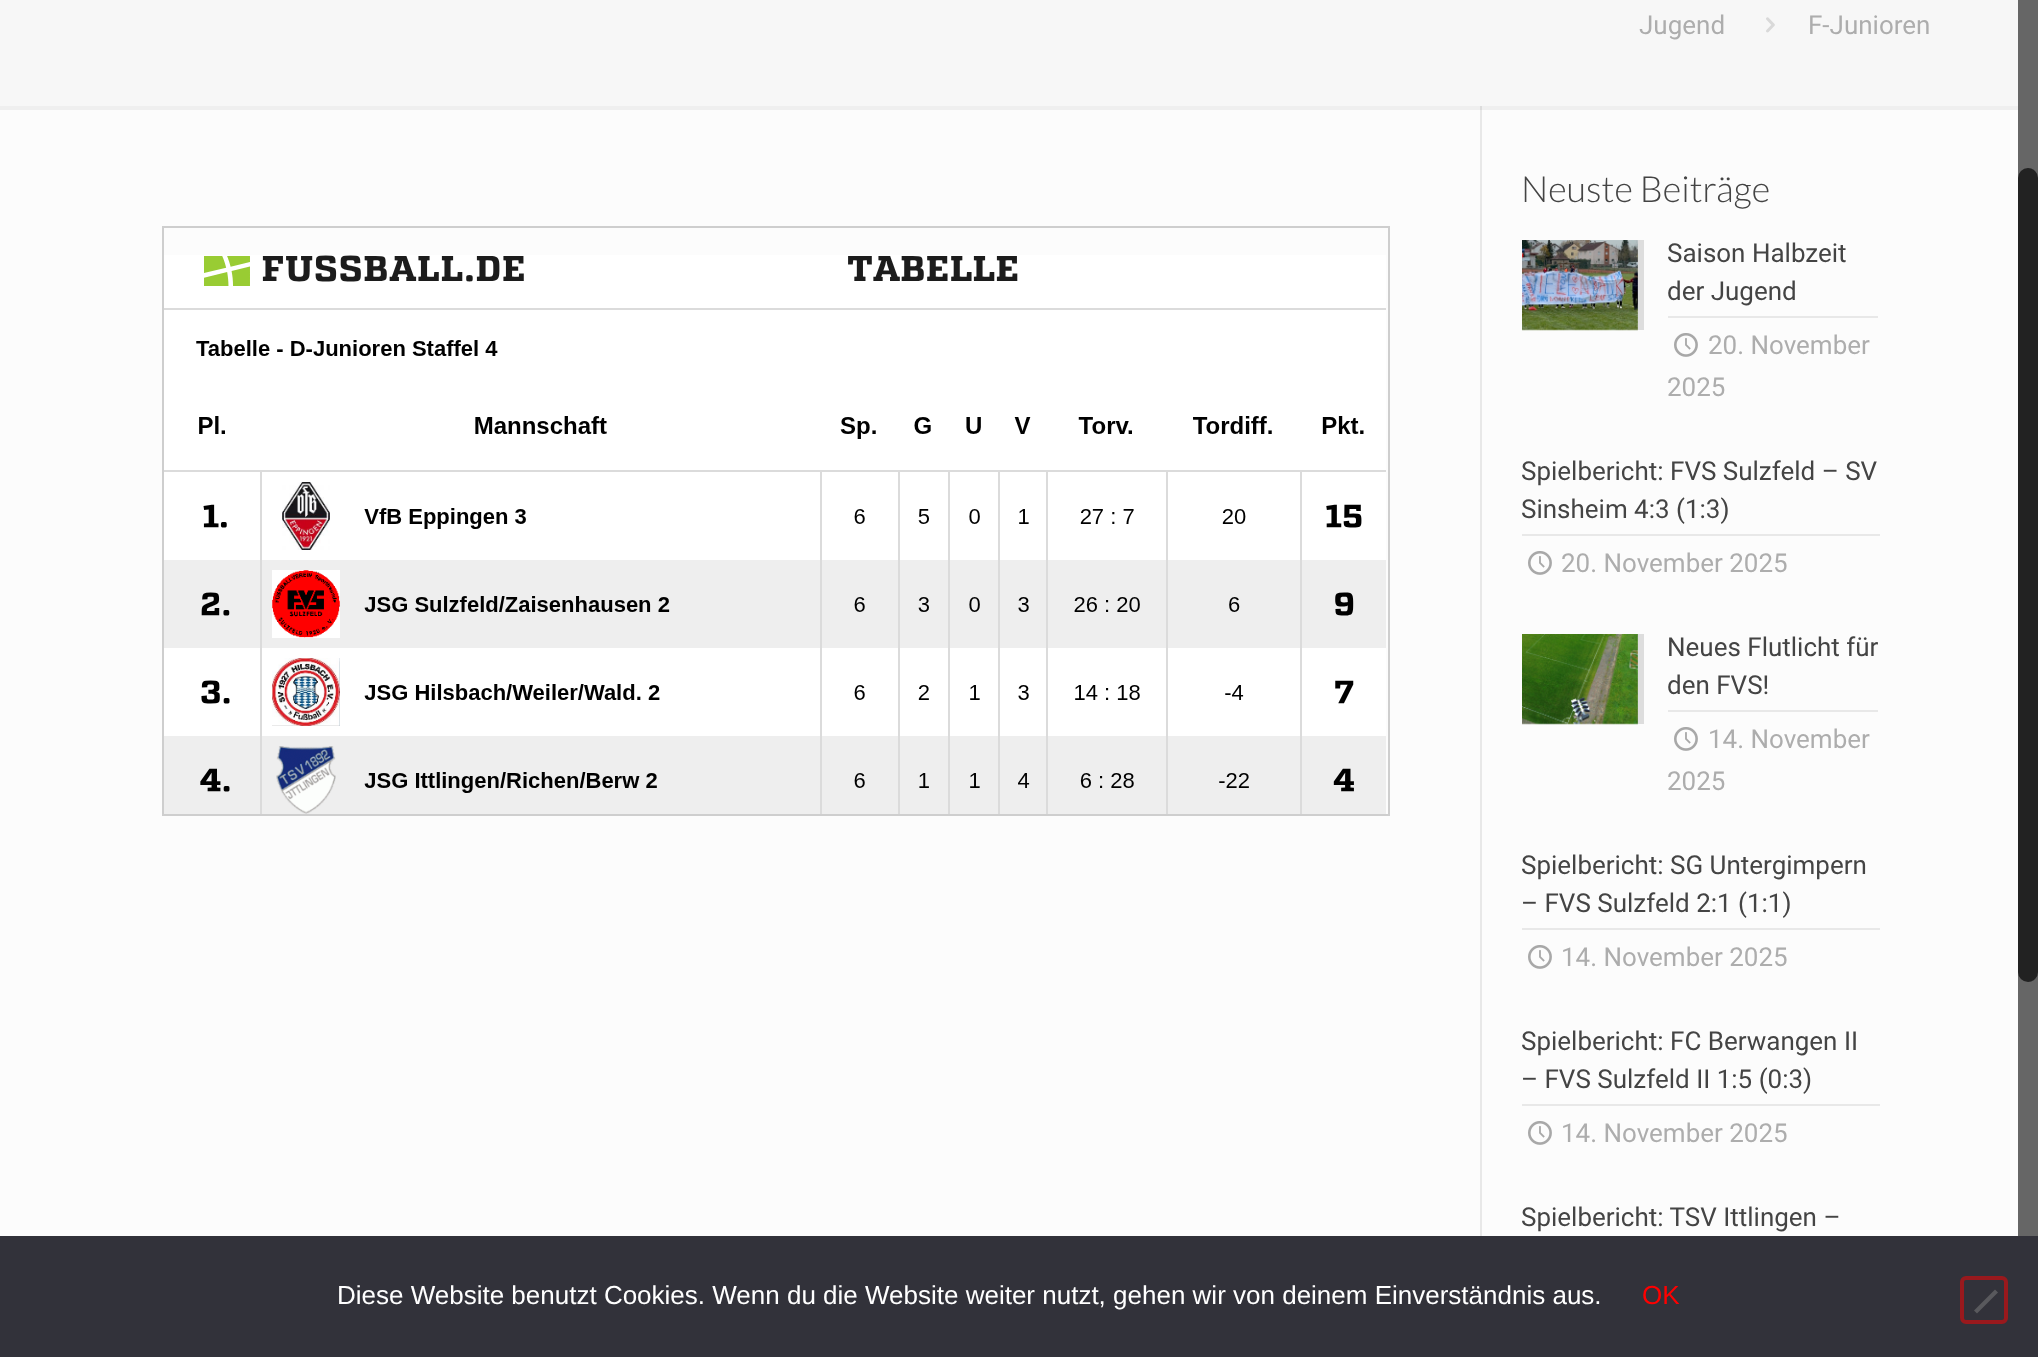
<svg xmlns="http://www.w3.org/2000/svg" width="2038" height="1357">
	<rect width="100%" height="100%" fill="#FCFCFC" />
	<rect x="0" y="106" width="2018" height="4" fill="#EFEFEF" />
	<rect x="0" y="0" width="2018" height="106" fill="#F7F7F7" />
	<text x="1639" y="34" font-family="Roboto" font-size="26" fill="#ADADAD">Jugend</text>
	<image x="1766" y="17" width="9" height="16" href="assets/img1.png" />
	<text x="1808" y="34" font-family="Roboto" font-size="26" fill="#ADADAD">F-Junioren</text>
	<rect x="163" y="227" width="1226" height="588" fill="none" stroke="#CECECE" stroke-width="2" />
	<image x="164" y="255" width="1222" height="559" href="assets/img2.png" />
	<rect x="1480" y="106" width="2" height="1130" fill="#E8E8E8" />
	<rect x="1480" y="106" width="2" height="4" fill="#DCDCDC" />
	<text x="1521" y="202" font-family="Lato" font-size="36" font-weight="300" fill="#444444">Neuste Beiträge</text>
	<rect x="1638" y="240" width="6" height="90" fill="#DDDDDD" />
	<image x="1522" y="240" width="116" height="91" href="assets/img3.png" />
	<rect x="1668" y="316" width="210" height="2" fill="#E8E8E8" />
	<g font-family="Roboto" font-size="26" fill="#444444">
		<text x="1667" y="262">Saison Halbzeit</text>
		<text x="1667" y="300">der Jugend</text>
	</g>
	<image x="1674" y="333" width="24" height="24" href="assets/img4.png" />
	<g font-family="Roboto" font-size="26" fill="#ADADAD">
		<text x="1708" y="354">20. November</text>
		<text x="1667" y="396">2025</text>
	</g>
	<rect x="1522" y="534" width="358" height="2" fill="#E8E8E8" />
	<g font-family="Roboto" font-size="26" fill="#444444">
		<text x="1521" y="480">Spielbericht: FVS Sulzfeld – SV</text>
		<text x="1521" y="518">Sinsheim 4:3 (1:3)</text>
	</g>
	<image x="1528" y="551" width="24" height="24" href="assets/img4.png" />
	<text x="1561" y="572" font-family="Roboto" font-size="26" fill="#ADADAD">20. November 2025</text>
	<rect x="1638" y="634" width="6" height="90" fill="#DDDDDD" />
	<image x="1522" y="634" width="116" height="91" href="assets/img5.png" />
	<rect x="1668" y="710" width="210" height="2" fill="#E8E8E8" />
	<g font-family="Roboto" font-size="26" fill="#444444">
		<text x="1667" y="656">Neues Flutlicht für</text>
		<text x="1667" y="694">den FVS!</text>
	</g>
	<image x="1674" y="727" width="24" height="24" href="assets/img4.png" />
	<g font-family="Roboto" font-size="26" fill="#ADADAD">
		<text x="1708" y="748">14. November</text>
		<text x="1667" y="790">2025</text>
	</g>
	<rect x="1522" y="928" width="358" height="2" fill="#E8E8E8" />
	<g font-family="Roboto" font-size="26" fill="#444444">
		<text x="1521" y="874">Spielbericht: SG Untergimpern</text>
		<text x="1521" y="912">– FVS Sulzfeld 2:1 (1:1)</text>
	</g>
	<image x="1528" y="945" width="24" height="24" href="assets/img4.png" />
	<text x="1561" y="966" font-family="Roboto" font-size="26" fill="#ADADAD">14. November 2025</text>
	<rect x="1522" y="1104" width="358" height="2" fill="#E8E8E8" />
	<g font-family="Roboto" font-size="26" fill="#444444">
		<text x="1521" y="1050">Spielbericht: FC Berwangen II</text>
		<text x="1521" y="1088">– FVS Sulzfeld II 1:5 (0:3)</text>
	</g>
	<image x="1528" y="1121" width="24" height="24" href="assets/img4.png" />
	<text x="1561" y="1142" font-family="Roboto" font-size="26" fill="#ADADAD">14. November 2025</text>
	<text x="1521" y="1226" font-family="Roboto" font-size="26" fill="#444444">Spielbericht: TSV Ittlingen –</text>
	<rect x="2018" y="0" width="20" height="1236" fill="#666666" />
	<rect x="2018" y="168" width="20" height="814" rx="10" fill="#222222" />
	<rect x="0" y="1236" width="2038" height="121" fill="#32323A" />
	<text x="337" y="1304" font-family="Liberation Sans" font-size="26" fill="#FFFFFF">Diese Website benutzt Cookies. Wenn du die Website weiter nutzt, gehen wir von deinem Einverständnis aus.</text>
	<text x="1642" y="1304" font-family="Liberation Sans" font-size="26" fill="#FF0000">OK</text>
	<rect x="1962" y="1278" width="44" height="44" rx="4" fill="none" stroke="#99191D" stroke-width="4" />
	<path d="M1995 1289.5L1998 1292.5L1977 1313.5L1974 1310.5Z" fill="#59595D" />
</svg>
